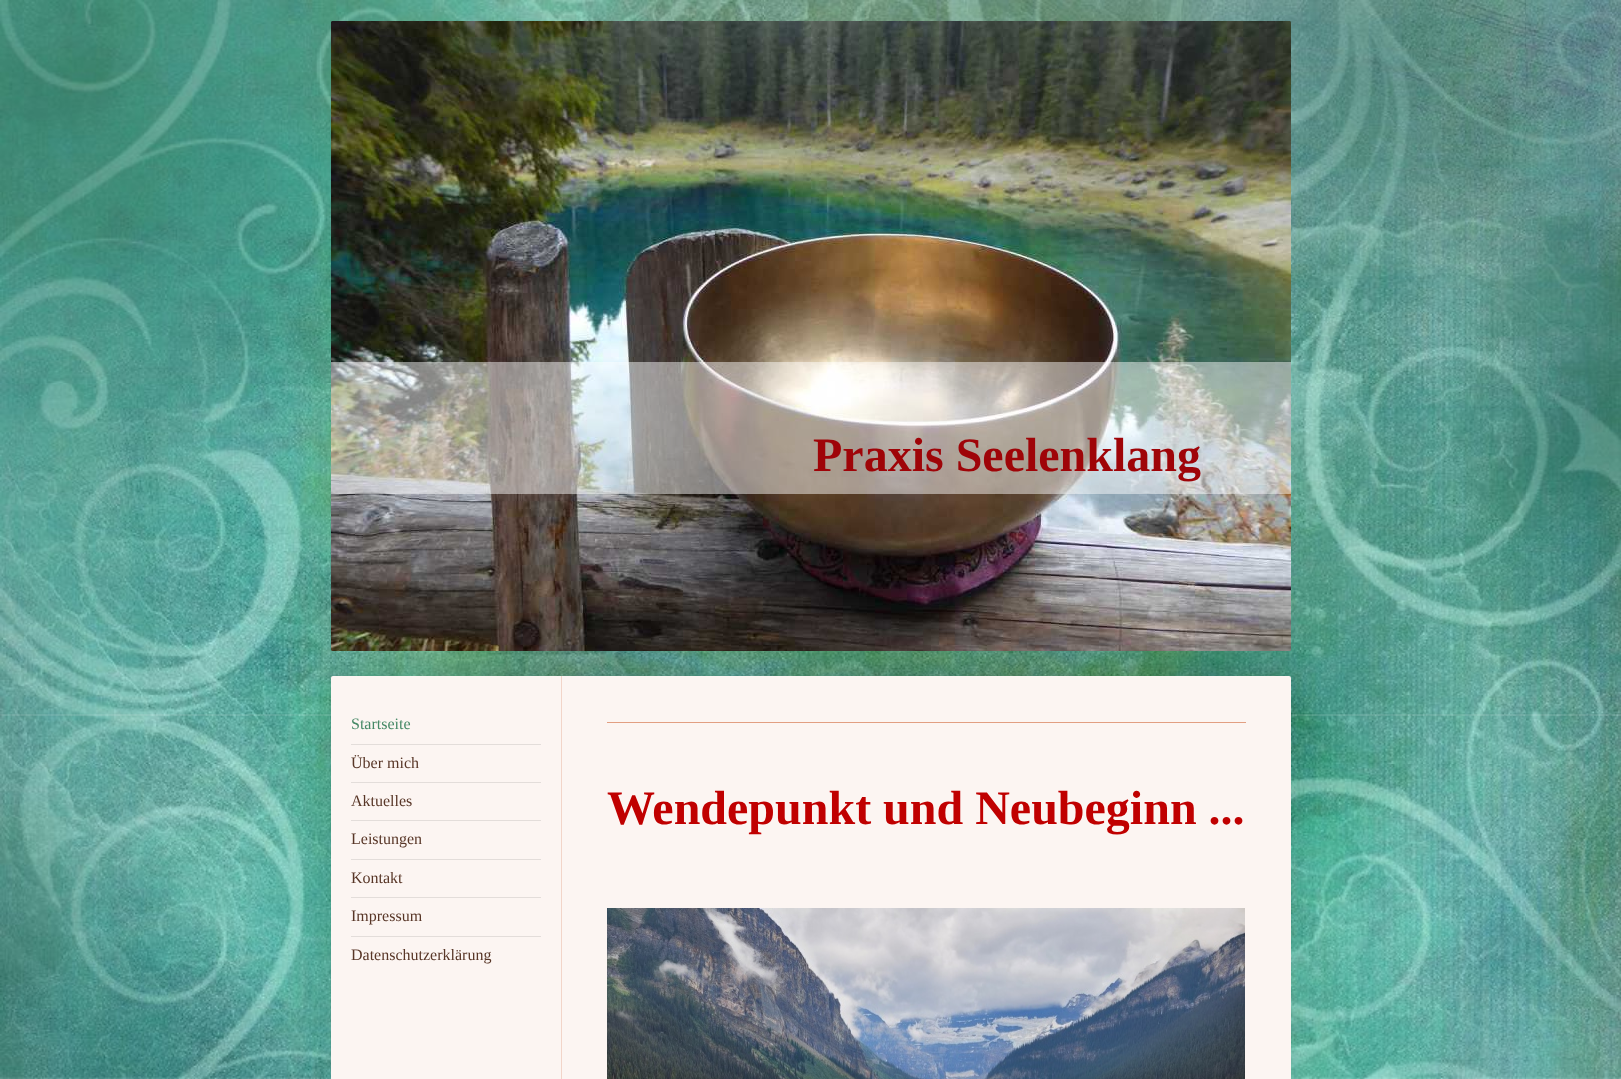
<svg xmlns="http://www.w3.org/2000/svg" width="1621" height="1079">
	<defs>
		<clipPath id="clip1"><rect x="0" y="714" width="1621" height="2" /></clipPath>
	</defs>
	<rect width="100%" height="100%" fill="#FFFFFF" />
	<image x="0" y="0" width="1621" height="1079" href="assets/img1.png" />
	<g clip-path="url(#clip1)">
		<rect x="0" y="2" width="1621" height="714" fill="#FFFFFF" fill-opacity="0.1" filter="blur(0.5px)" />
	</g>
	<image x="331" y="21" width="960" height="630" href="assets/img2.png" />
	<rect x="331" y="666" width="960" height="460" rx="2" fill="#000000" fill-opacity="0.1" filter="blur(15px)" />
	<image x="331" y="21" width="960" height="630" href="assets/img3.png" />
	<rect x="331" y="362" width="960" height="132" fill="#FFFFFF" fill-opacity="0.48" />
	<text x="813" y="471" font-family="Liberation Serif" font-size="48" font-weight="700" fill="#9F0408">Praxis Seelenklang</text>
	<rect x="331" y="676" width="960" height="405" rx="2" fill="#FCF5F2" />
	<rect x="351" y="744" width="190" height="1" fill="#E3DDDA" />
	<text x="351" y="729" font-family="Liberation Serif" font-size="16" fill="#468966">Startseite</text>
	<rect x="351" y="782" width="190" height="1" fill="#E3DDDA" />
	<text x="351" y="768" font-family="Liberation Serif" font-size="16" fill="#583627">Über mich</text>
	<rect x="351" y="820" width="190" height="1" fill="#E3DDDA" />
	<text x="351" y="806" font-family="Liberation Serif" font-size="16" fill="#583627">Aktuelles</text>
	<rect x="351" y="859" width="190" height="1" fill="#E3DDDA" />
	<text x="351" y="844" font-family="Liberation Serif" font-size="16" fill="#583627">Leistungen</text>
	<rect x="351" y="897" width="190" height="1" fill="#E3DDDA" />
	<text x="351" y="883" font-family="Liberation Serif" font-size="16" fill="#583627">Kontakt</text>
	<rect x="351" y="936" width="190" height="1" fill="#E3DDDA" />
	<g font-family="Liberation Serif" font-size="16" fill="#583627">
		<text x="351" y="921">Impressum</text>
		<text x="351" y="960">Datenschutzerklärung</text>
	</g>
	<rect x="561" y="676" width="1" height="403" fill="#F2D5C9" />
	<rect x="607" y="722" width="639" height="1" fill="#E29F82" />
	<text x="607" y="824" font-family="Liberation Serif" font-size="48" font-weight="700" fill="#C00000">Wendepunkt und Neubeginn ...</text>
	<image x="607" y="908" width="638" height="171" href="assets/img4.png" />
</svg>
